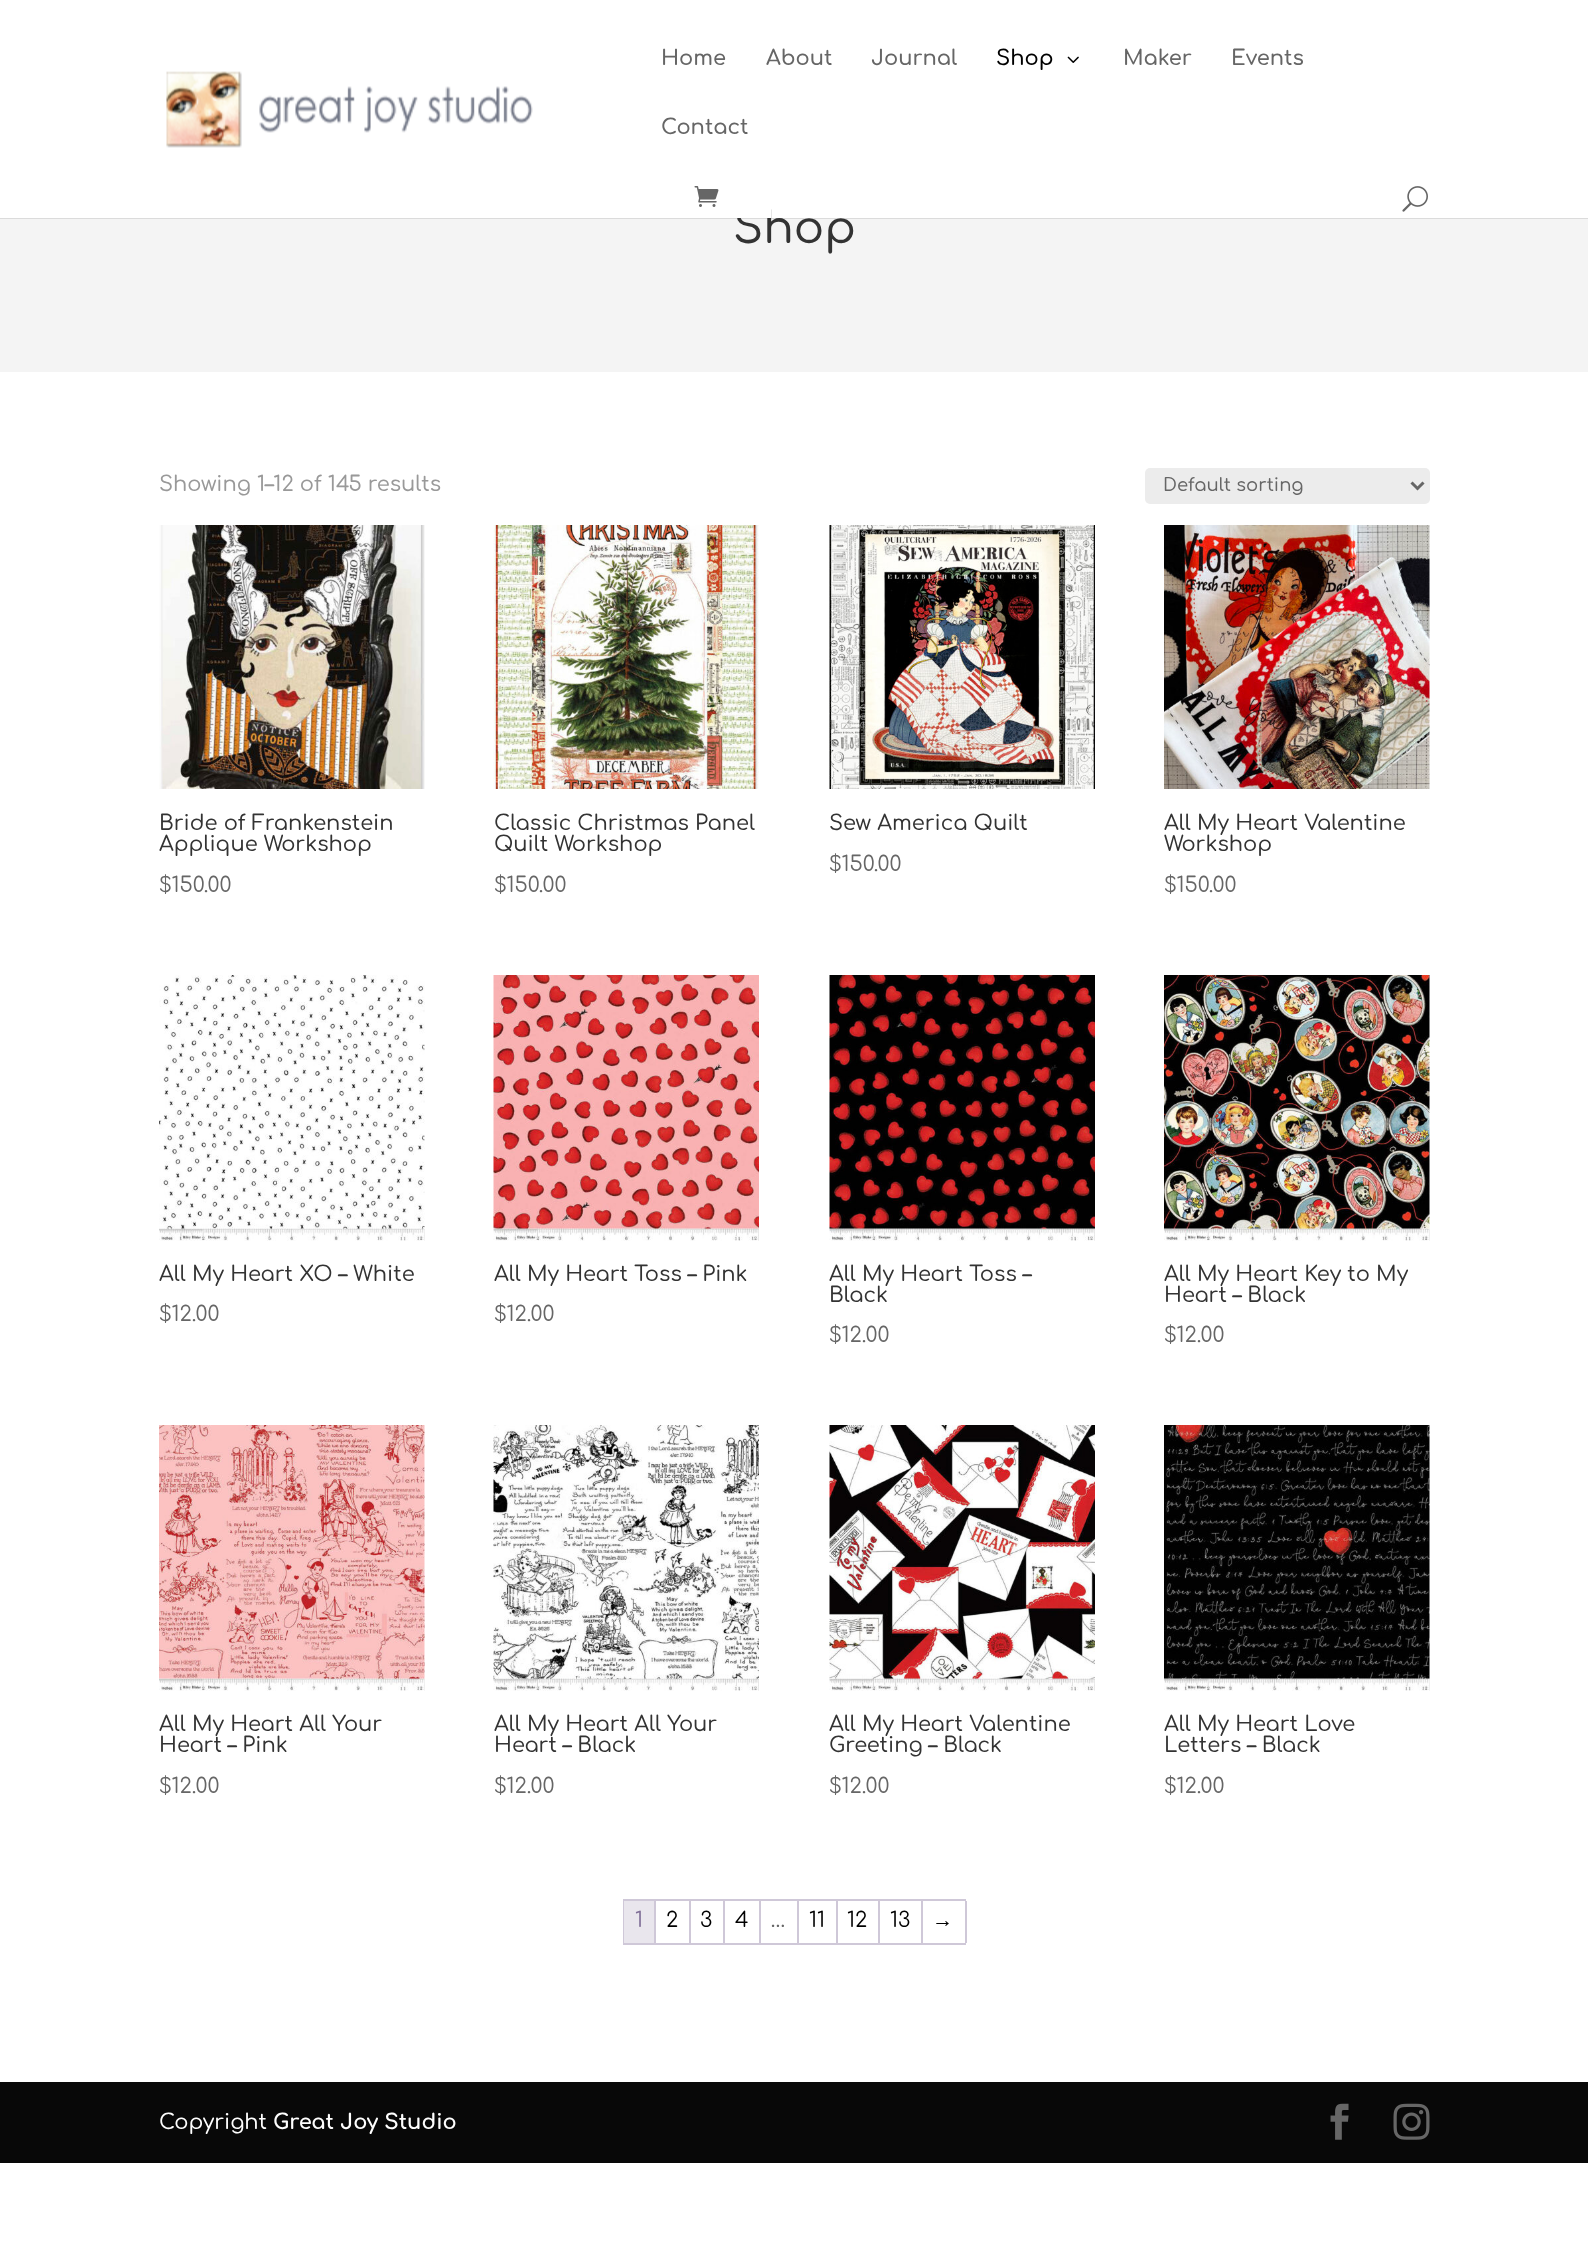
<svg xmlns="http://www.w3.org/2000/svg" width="1588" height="2260">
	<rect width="100%" height="100%" fill="#FFFFFF" />
	<rect x="0" y="218" width="1588" height="154" fill="#F4F4F4" />
	<path d="M0 218V219H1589V2H1588V218Z" fill="#000000" fill-opacity="0.1" />
	<text x="733" y="243" font-family="Comfortaa" font-size="45" font-weight="500" fill="#333333">Shop</text>
	<rect x="736" y="207" width="35" height="11" fill="#FFFFFF" />
	<image x="166" y="71" width="367" height="77" href="assets/img1.png" />
	<g font-family="Comfortaa" font-size="21" font-weight="600" fill="#666666">
		<text x="661" y="65">Home</text>
		<text x="766" y="65">About</text>
		<text x="871" y="65">Journal</text>
	</g>
	<text x="996" y="65" font-family="Comfortaa" font-size="21" font-weight="600" fill="#000000">Shop</text>
	<image x="1067" y="56" width="12" height="7" href="assets/img2.png" />
	<g font-family="Comfortaa" font-size="21" font-weight="600" fill="#666666">
		<text x="1123" y="65">Maker</text>
		<text x="1231" y="65">Events</text>
		<text x="661" y="134">Contact</text>
	</g>
	<image x="694" y="186" width="25" height="21" href="assets/img3.png" />
	<image x="1402" y="186" width="26" height="26" href="assets/img4.png" />
	<text x="159" y="491" font-family="Comfortaa" font-size="21" font-weight="500" fill="#999999">Showing 1–12 of 145 results</text>
	<rect x="1145" y="468" width="285" height="36" rx="5" fill="#ECECEC" />
	<path d="M1411.5 482.5L1417.5 488.5L1423.5 482.5" fill="none" stroke="#666666" stroke-width="3" />
	<text x="1163" y="491" font-family="Comfortaa" font-size="18" font-weight="500" fill="#666666">Default sorting</text>
	<image x="159" y="525" width="266" height="264" href="assets/img5.png" />
	<g font-family="Comfortaa" font-size="21" font-weight="500" fill="#333333">
		<text x="159" y="830">Bride of Frankenstein</text>
		<text x="159" y="851">Applique Workshop</text>
	</g>
	<text x="159" y="892" font-family="Comfortaa" font-size="21" fill="#666666">$150.00</text>
	<image x="493" y="525" width="266" height="264" href="assets/img6.png" />
	<g font-family="Comfortaa" font-size="21" font-weight="500" fill="#333333">
		<text x="494" y="830">Classic Christmas Panel</text>
		<text x="494" y="851">Quilt Workshop</text>
	</g>
	<text x="494" y="892" font-family="Comfortaa" font-size="21" fill="#666666">$150.00</text>
	<image x="829" y="525" width="266" height="264" href="assets/img7.png" />
	<text x="829" y="830" font-family="Comfortaa" font-size="21" font-weight="500" fill="#333333">Sew America Quilt</text>
	<text x="829" y="871" font-family="Comfortaa" font-size="21" fill="#666666">$150.00</text>
	<image x="1164" y="525" width="266" height="264" href="assets/img8.png" />
	<g font-family="Comfortaa" font-size="21" font-weight="500" fill="#333333">
		<text x="1164" y="830">All My Heart Valentine</text>
		<text x="1164" y="851">Workshop</text>
	</g>
	<text x="1164" y="892" font-family="Comfortaa" font-size="21" fill="#666666">$150.00</text>
	<image x="159" y="975" width="266" height="266" href="assets/img9.png" />
	<text x="159" y="1281" font-family="Comfortaa" font-size="21" font-weight="500" fill="#333333">All My Heart XO – White</text>
	<text x="159" y="1321" font-family="Comfortaa" font-size="21" fill="#666666">$12.00</text>
	<image x="493" y="975" width="266" height="266" href="assets/img10.png" />
	<text x="494" y="1281" font-family="Comfortaa" font-size="21" font-weight="500" fill="#333333">All My Heart Toss – Pink</text>
	<text x="494" y="1321" font-family="Comfortaa" font-size="21" fill="#666666">$12.00</text>
	<image x="829" y="975" width="266" height="266" href="assets/img11.png" />
	<g font-family="Comfortaa" font-size="21" font-weight="500" fill="#333333">
		<text x="829" y="1281">All My Heart Toss –</text>
		<text x="829" y="1302">Black</text>
	</g>
	<text x="829" y="1342" font-family="Comfortaa" font-size="21" fill="#666666">$12.00</text>
	<image x="1164" y="975" width="266" height="266" href="assets/img12.png" />
	<g font-family="Comfortaa" font-size="21" font-weight="500" fill="#333333">
		<text x="1164" y="1281">All My Heart Key to My</text>
		<text x="1164" y="1302">Heart – Black</text>
	</g>
	<text x="1164" y="1342" font-family="Comfortaa" font-size="21" fill="#666666">$12.00</text>
	<image x="159" y="1425" width="266" height="266" href="assets/img13.png" />
	<g font-family="Comfortaa" font-size="21" font-weight="500" fill="#333333">
		<text x="159" y="1731">All My Heart All Your</text>
		<text x="159" y="1752">Heart – Pink</text>
	</g>
	<text x="159" y="1793" font-family="Comfortaa" font-size="21" fill="#666666">$12.00</text>
	<image x="493" y="1425" width="266" height="266" href="assets/img14.png" />
	<g font-family="Comfortaa" font-size="21" font-weight="500" fill="#333333">
		<text x="494" y="1731">All My Heart All Your</text>
		<text x="494" y="1752">Heart – Black</text>
	</g>
	<text x="494" y="1793" font-family="Comfortaa" font-size="21" fill="#666666">$12.00</text>
	<image x="829" y="1425" width="266" height="266" href="assets/img15.png" />
	<g font-family="Comfortaa" font-size="21" font-weight="500" fill="#333333">
		<text x="829" y="1731">All My Heart Valentine</text>
		<text x="829" y="1752">Greeting – Black</text>
	</g>
	<text x="829" y="1793" font-family="Comfortaa" font-size="21" fill="#666666">$12.00</text>
	<image x="1164" y="1425" width="266" height="266" href="assets/img16.png" />
	<g font-family="Comfortaa" font-size="21" font-weight="500" fill="#333333">
		<text x="1164" y="1731">All My Heart Love</text>
		<text x="1164" y="1752">Letters – Black</text>
	</g>
	<text x="1164" y="1793" font-family="Comfortaa" font-size="21" fill="#666666">$12.00</text>
	<rect x="623" y="1899" width="343" height="2" fill="#CFC8D8" />
	<rect x="623" y="1943" width="343" height="2" fill="#CFC8D8" />
	<rect x="623" y="1899" width="2" height="45" fill="#CFC8D8" />
	<rect x="654" y="1901" width="2" height="42" fill="#CFC8D8" />
	<rect x="624" y="1901" width="30" height="42" fill="#E9E6ED" />
	<text x="635" y="1927" font-family="Comfortaa" font-size="21" fill="#816F98">1</text>
	<rect x="689" y="1901" width="2" height="42" fill="#CFC8D8" />
	<text x="666" y="1927" font-family="Comfortaa" font-size="21" fill="#000000">2</text>
	<rect x="723" y="1901" width="2" height="42" fill="#CFC8D8" />
	<text x="700" y="1927" font-family="Comfortaa" font-size="21" fill="#000000">3</text>
	<rect x="759" y="1901" width="2" height="42" fill="#CFC8D8" />
	<text x="735" y="1927" font-family="Comfortaa" font-size="21" fill="#000000">4</text>
	<rect x="797" y="1901" width="2" height="42" fill="#CFC8D8" />
	<text x="771" y="1927" font-family="Comfortaa" font-size="21" fill="#666666">…</text>
	<rect x="836" y="1901" width="2" height="42" fill="#CFC8D8" />
	<text x="809" y="1927" font-family="Comfortaa" font-size="21" fill="#000000">11</text>
	<rect x="878" y="1901" width="2" height="42" fill="#CFC8D8" />
	<text x="847" y="1927" font-family="Comfortaa" font-size="21" fill="#000000">12</text>
	<rect x="921" y="1901" width="2" height="42" fill="#CFC8D8" />
	<text x="890" y="1927" font-family="Comfortaa" font-size="21" fill="#000000">13</text>
	<rect x="965" y="1901" width="2" height="42" fill="#CFC8D8" />
	<text x="932" y="1927" font-family="Liberation Serif" font-size="21" fill="#000000">→</text>
	<rect x="0" y="2082" width="1588" height="81" fill="#080808" />
	<text x="159" y="2129" font-family="Comfortaa" font-size="21" font-weight="500" fill="#FFFFFF">Copyright</text>
	<text x="273" y="2129" font-family="Comfortaa" font-size="21" font-weight="700" fill="#FFFFFF">Great Joy Studio</text>
	<image x="1330" y="2103" width="19" height="37" href="assets/img17.png" />
	<image x="1393" y="2103" width="37" height="37" href="assets/img18.png" />
</svg>
